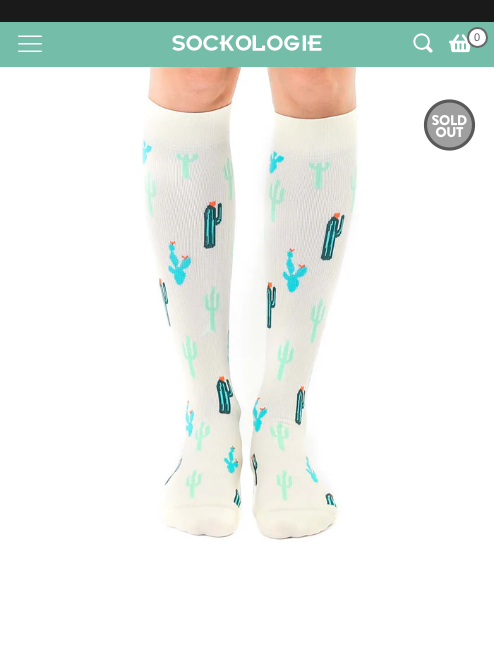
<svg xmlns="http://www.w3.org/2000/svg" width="494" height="657">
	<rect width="100%" height="100%" fill="#FFFFFF" />
	<rect x="0" y="0" width="494" height="22" fill="#1A1A1A" />
	<rect x="0" y="22" width="494" height="45" fill="#74BDA9" />
	<image x="18" y="35" width="24" height="17" href="assets/img1.png" />
	<image x="172" y="35" width="150" height="16" href="assets/img2.png" />
	<image x="413" y="33" width="20" height="20" href="assets/img3.png" />
	<image x="449" y="34" width="22" height="19" href="assets/img4.png" />
	<circle cx="477.5" cy="37.5" r="9.5" fill="#FFFFFF" stroke="#666666" stroke-width="2" />
	<text x="474" y="41" font-family="Liberation Sans" font-size="11" fill="#666666">0</text>
	<image x="141" y="67" width="218" height="474" href="assets/img5.png" />
	<image x="423" y="99" width="53" height="52" href="assets/img6.png" />
</svg>
